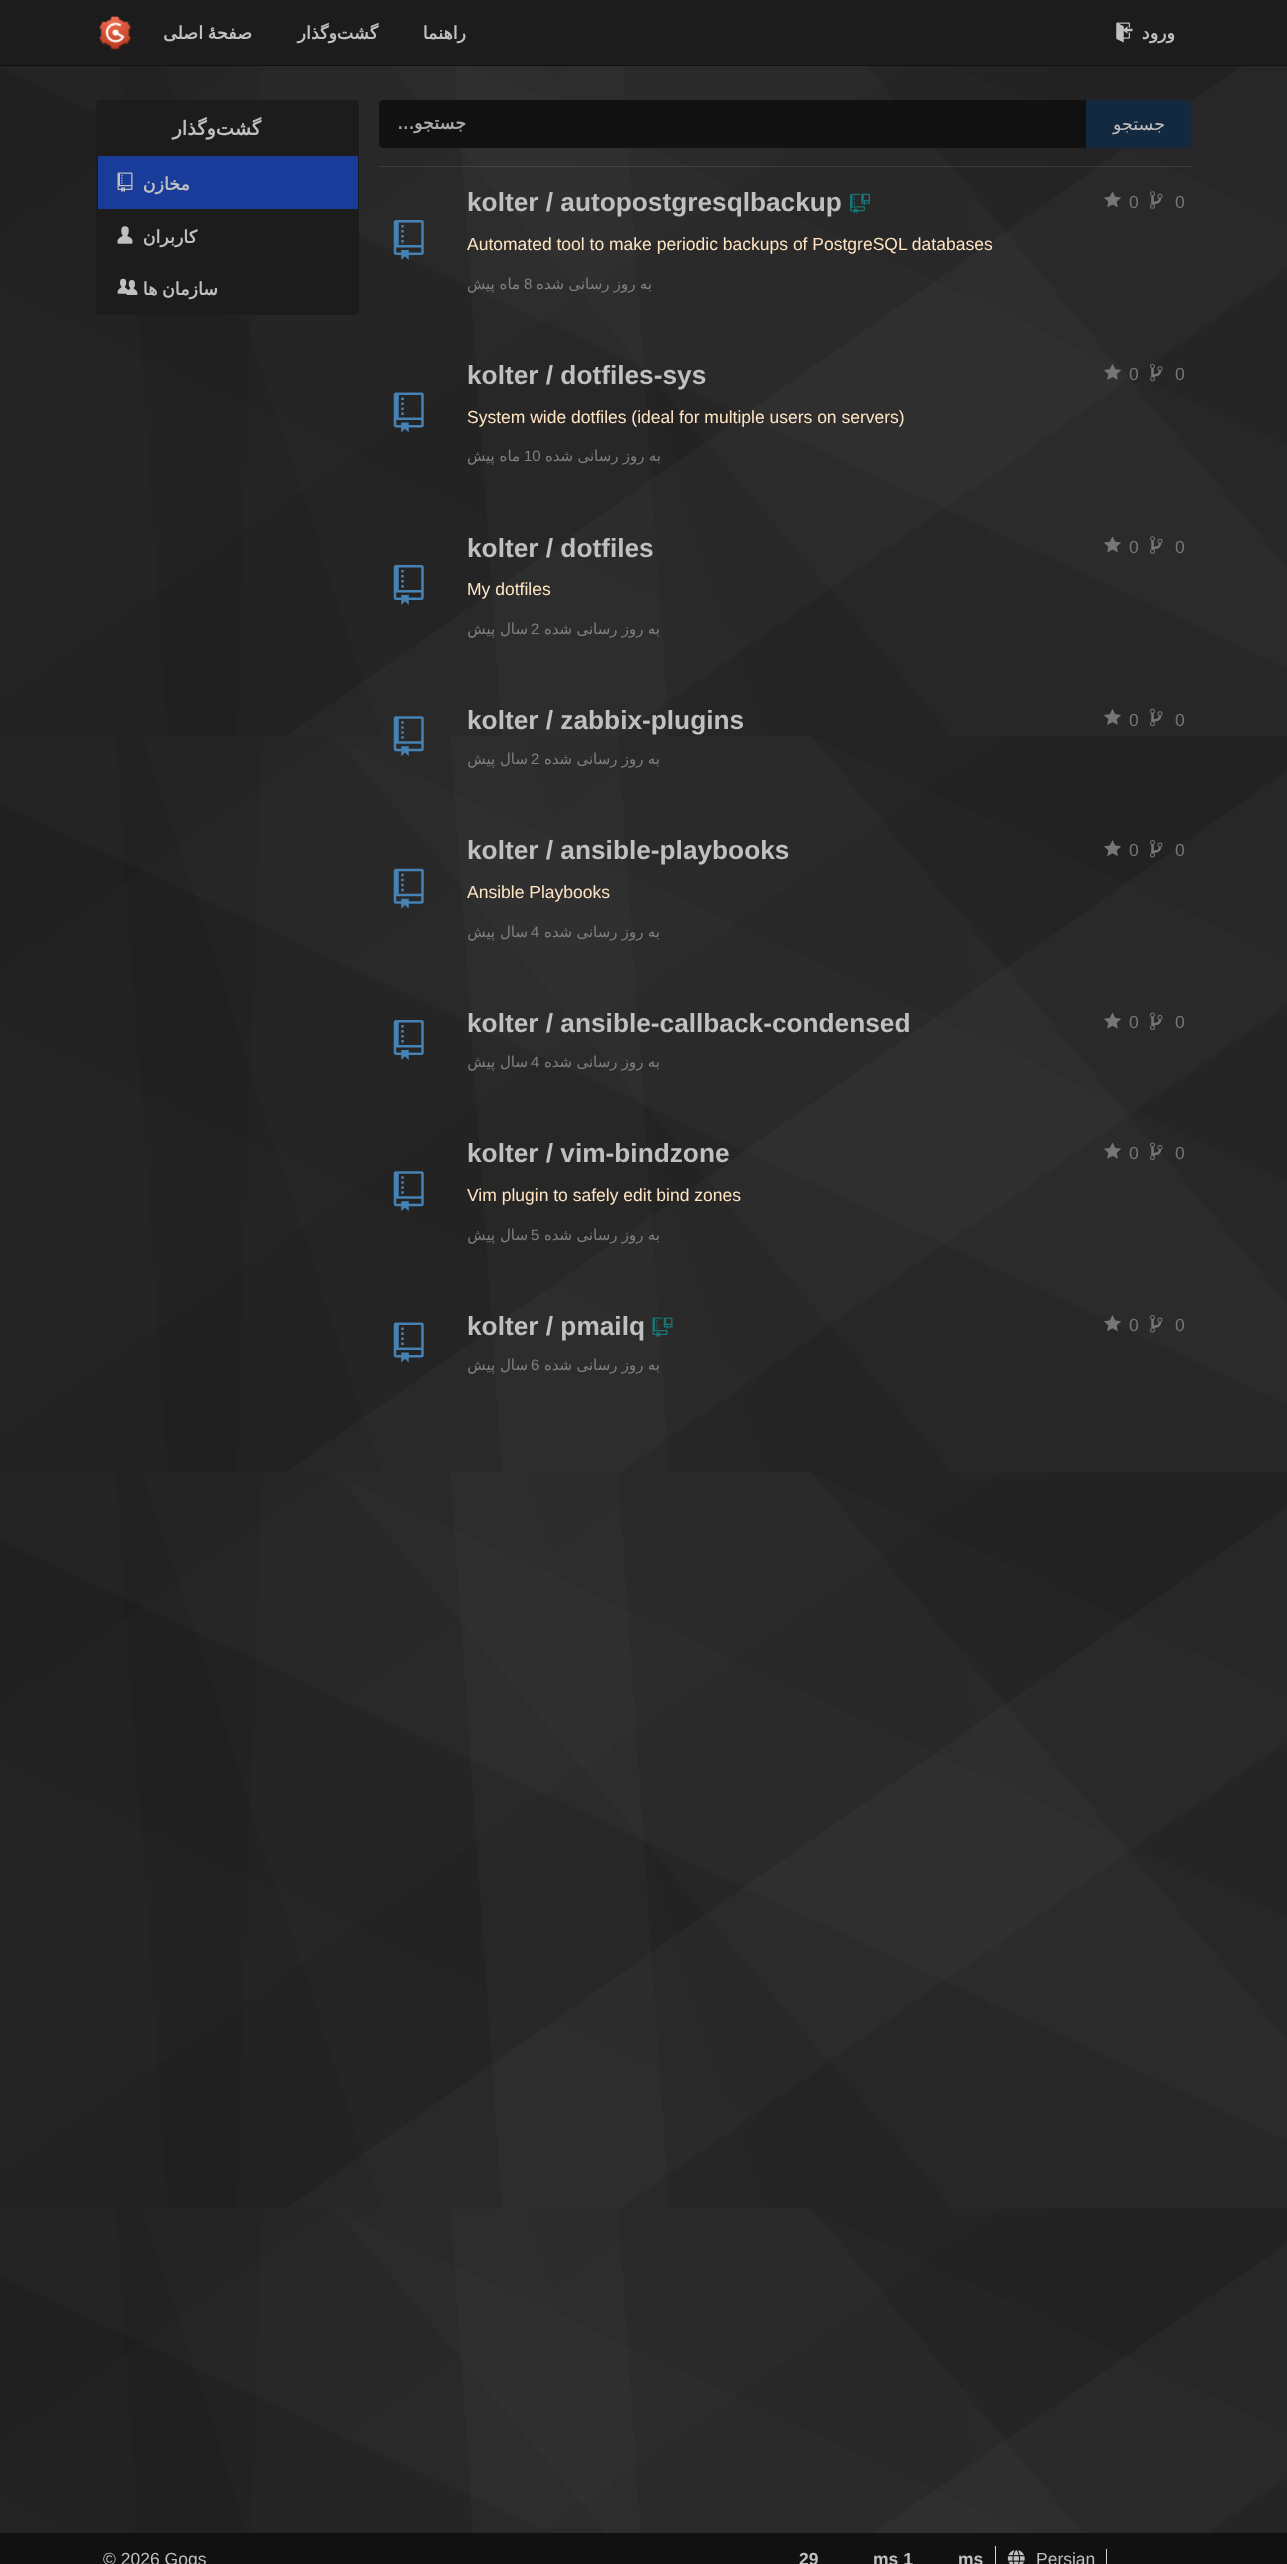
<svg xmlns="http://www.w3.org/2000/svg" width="1287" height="2564">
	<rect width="100%" height="100%" fill="#FFFFFF" />
	<image x="0" y="66" width="1287" height="2467" href="assets/img1.png" />
	<rect x="0" y="0" width="1287" height="65" fill="#1C1C1C" />
	<rect x="0" y="65" width="1287" height="1" fill="#111111" />
	<image x="99" y="15" width="33" height="36" href="assets/img2.png" />
	<g font-family="DejaVu Sans" font-size="17.5" font-weight="700" direction="rtl" fill="#C0C0C0">
		<text x="252" y="39" word-spacing="-1">صفحهٔ اصلی</text>
		<text x="378" y="39">گشت‌و‌گذار</text>
		<text x="466" y="39">راهنما</text>
	</g>
	<image x="1116" y="22" width="17" height="21" href="assets/img3.png" />
	<text x="1175" y="39" font-family="DejaVu Sans" font-size="17.5" font-weight="700" direction="rtl" fill="#C0C0C0">ورود</text>
	<rect x="96" y="100" width="263" height="215" rx="5" fill="#1C1C1C" />
	<text x="261" y="135" font-family="DejaVu Sans" font-size="19.25" font-weight="700" direction="rtl" fill="#C0C0C0">گشت‌و‌گذار</text>
	<rect x="98" y="157" width="260" height="52" fill="#193C9B" />
	<rect x="98" y="156" width="260" height="1" fill="#1A3A8F" />
	<image x="117" y="172" width="16" height="21" href="assets/img4.png" />
	<text x="190" y="190" font-family="DejaVu Sans" font-size="17.5" font-weight="700" direction="rtl" fill="#C0C0C0">مخازن</text>
	<image x="117" y="226" width="16" height="18" href="assets/img5.png" />
	<text x="197" y="243" font-family="DejaVu Sans" font-size="17.5" font-weight="700" direction="rtl" fill="#C0C0C0">کاربران</text>
	<image x="117" y="278" width="21" height="17" href="assets/img6.png" />
	<text x="218" y="295" word-spacing="-1" font-family="DejaVu Sans" font-size="17.5" font-weight="700" direction="rtl" fill="#C0C0C0">سازمان ها</text>
	<path d="M384 100H1086V148H384C381 148 379 146 379 143V105C379 102 381 100 384 100Z" fill="#111111" />
	<path d="M384 100C382 100 381 101 380 102H381L384 101H1085L1086 100Z" fill="#222426" fill-opacity="0.15" />
	<path d="M382 148L380 146L381 145C382 146 383 146 384 146H1085L1086 148Z" fill="#222426" fill-opacity="0.15" />
	<path d="M380 102C379 102 379 104 379 105V142C379 143 379 145 380 146L381 145C380 144 380 143 380 142V105C380 104 380 103 381 102Z" fill="#222426" fill-opacity="0.15" />
	<text x="466" y="129" font-family="DejaVu Sans" font-size="17.5" font-weight="700" direction="rtl" fill="#A8A8A8">جستجو...</text>
	<path d="M1086 100H1186C1189 100 1191 102 1191 105V143C1191 146 1189 148 1186 148H1086Z" fill="#122940" />
	<text x="1165" y="130" font-family="DejaVu Sans" font-size="17.5" direction="rtl" fill="#C0C0C0">جستجو</text>
	<rect x="379" y="166" width="812" height="1" fill="#FFFFFF" fill-opacity="0.1" />
	<image x="393" y="220" width="31" height="40" href="assets/img7.png" />
	<text x="467" y="211" font-family="Liberation Sans" font-size="26.25" font-weight="700" fill="#C0C0C0">kolter / autopostgresqlbackup</text>
	<image x="850" y="193" width="20" height="21" href="assets/img8.png" />
	<image x="1104" y="191" width="17" height="17" href="assets/img9.png" />
	<text x="1129" y="208" font-family="Liberation Sans" font-size="17.5" fill="#767676">0</text>
	<image x="1150" y="191" width="13" height="18" href="assets/img10.png" />
	<text x="1175" y="208" font-family="Liberation Sans" font-size="17.5" fill="#767676">0</text>
	<text x="467" y="250" font-family="Liberation Sans" font-size="17.5" fill="#FFE4C4">Automated tool to make periodic backups of PostgreSQL databases</text>
	<text x="520" y="289" font-family="DejaVu Sans" font-size="15" direction="rtl" fill="#808080">ماه پیش</text>
	<text x="524" y="289" font-family="Liberation Sans" font-size="15" fill="#808080">8</text>
	<text x="652" y="289" word-spacing="-0.5" font-family="DejaVu Sans" font-size="15" direction="rtl" fill="#808080">به روز رسانی شده</text>
	<image x="393" y="392" width="31" height="41" href="assets/img11.png" />
	<text x="467" y="384" font-family="Liberation Sans" font-size="26.25" font-weight="700" fill="#C0C0C0">kolter / dotfiles-sys</text>
	<image x="1104" y="364" width="17" height="16" href="assets/img12.png" />
	<text x="1129" y="380" font-family="Liberation Sans" font-size="17.5" fill="#767676">0</text>
	<image x="1150" y="363" width="13" height="19" href="assets/img13.png" />
	<text x="1175" y="380" font-family="Liberation Sans" font-size="17.5" fill="#767676">0</text>
	<text x="467" y="423" font-family="Liberation Sans" font-size="17.5" fill="#FFE4C4">System wide dotfiles (ideal for multiple users on servers)</text>
	<text x="520" y="461" font-family="DejaVu Sans" font-size="15" direction="rtl" fill="#808080">ماه پیش</text>
	<text x="524" y="461" font-family="Liberation Sans" font-size="15" fill="#808080">10</text>
	<text x="661" y="461" word-spacing="-0.5" font-family="DejaVu Sans" font-size="15" direction="rtl" fill="#808080">به روز رسانی شده</text>
	<image x="393" y="565" width="31" height="40" href="assets/img14.png" />
	<text x="467" y="557" font-family="Liberation Sans" font-size="26.25" font-weight="700" fill="#C0C0C0">kolter / dotfiles</text>
	<image x="1104" y="536" width="17" height="17" href="assets/img15.png" />
	<text x="1129" y="553" font-family="Liberation Sans" font-size="17.5" fill="#767676">0</text>
	<image x="1150" y="536" width="13" height="18" href="assets/img16.png" />
	<text x="1175" y="553" font-family="Liberation Sans" font-size="17.5" fill="#767676">0</text>
	<text x="467" y="595" font-family="Liberation Sans" font-size="17.5" fill="#FFE4C4">My dotfiles</text>
	<text x="528" y="634" font-family="DejaVu Sans" font-size="15" direction="rtl" fill="#808080">سال پیش</text>
	<text x="531" y="634" font-family="Liberation Sans" font-size="15" fill="#808080">2</text>
	<text x="660" y="634" word-spacing="-0.5" font-family="DejaVu Sans" font-size="15" direction="rtl" fill="#808080">به روز رسانی شده</text>
	<image x="393" y="716" width="31" height="41" href="assets/img17.png" />
	<text x="467" y="729" font-family="Liberation Sans" font-size="26.25" font-weight="700" fill="#C0C0C0">kolter / zabbix-plugins</text>
	<image x="1104" y="709" width="17" height="16" href="assets/img18.png" />
	<text x="1129" y="726" font-family="Liberation Sans" font-size="17.5" fill="#767676">0</text>
	<image x="1150" y="708" width="13" height="19" href="assets/img19.png" />
	<text x="1175" y="726" font-family="Liberation Sans" font-size="17.5" fill="#767676">0</text>
	<text x="528" y="764" font-family="DejaVu Sans" font-size="15" direction="rtl" fill="#808080">سال پیش</text>
	<text x="531" y="764" font-family="Liberation Sans" font-size="15" fill="#808080">2</text>
	<text x="660" y="764" word-spacing="-0.5" font-family="DejaVu Sans" font-size="15" direction="rtl" fill="#808080">به روز رسانی شده</text>
	<image x="393" y="868" width="31" height="41" href="assets/img20.png" />
	<text x="467" y="859" font-family="Liberation Sans" font-size="26.25" font-weight="700" fill="#C0C0C0">kolter / ansible-playbooks</text>
	<image x="1104" y="840" width="17" height="17" href="assets/img21.png" />
	<text x="1129" y="856" font-family="Liberation Sans" font-size="17.5" fill="#767676">0</text>
	<image x="1150" y="840" width="13" height="18" href="assets/img22.png" />
	<text x="1175" y="856" font-family="Liberation Sans" font-size="17.5" fill="#767676">0</text>
	<text x="467" y="898" font-family="Liberation Sans" font-size="17.5" fill="#FFE4C4">Ansible Playbooks</text>
	<text x="528" y="937" font-family="DejaVu Sans" font-size="15" direction="rtl" fill="#808080">سال پیش</text>
	<text x="531" y="937" font-family="Liberation Sans" font-size="15" fill="#808080">4</text>
	<text x="660" y="937" word-spacing="-0.5" font-family="DejaVu Sans" font-size="15" direction="rtl" fill="#808080">به روز رسانی شده</text>
	<image x="393" y="1020" width="31" height="40" href="assets/img23.png" />
	<text x="467" y="1032" font-family="Liberation Sans" font-size="26.25" font-weight="700" fill="#C0C0C0">kolter / ansible-callback-condensed</text>
	<image x="1104" y="1012" width="17" height="17" href="assets/img24.png" />
	<text x="1129" y="1028" font-family="Liberation Sans" font-size="17.5" fill="#767676">0</text>
	<image x="1150" y="1012" width="13" height="18" href="assets/img25.png" />
	<text x="1175" y="1028" font-family="Liberation Sans" font-size="17.5" fill="#767676">0</text>
	<text x="528" y="1067" font-family="DejaVu Sans" font-size="15" direction="rtl" fill="#808080">سال پیش</text>
	<text x="531" y="1067" font-family="Liberation Sans" font-size="15" fill="#808080">4</text>
	<text x="660" y="1067" word-spacing="-0.5" font-family="DejaVu Sans" font-size="15" direction="rtl" fill="#808080">به روز رسانی شده</text>
	<image x="393" y="1171" width="31" height="41" href="assets/img26.png" />
	<text x="467" y="1162" font-family="Liberation Sans" font-size="26.25" font-weight="700" fill="#C0C0C0">kolter / vim-bindzone</text>
	<image x="1104" y="1142" width="17" height="17" href="assets/img27.png" />
	<text x="1129" y="1159" font-family="Liberation Sans" font-size="17.5" fill="#767676">0</text>
	<image x="1150" y="1142" width="13" height="18" href="assets/img28.png" />
	<text x="1175" y="1159" font-family="Liberation Sans" font-size="17.5" fill="#767676">0</text>
	<text x="467" y="1201" font-family="Liberation Sans" font-size="17.5" fill="#FFE4C4">Vim plugin to safely edit bind zones</text>
	<text x="528" y="1240" font-family="DejaVu Sans" font-size="15" direction="rtl" fill="#808080">سال پیش</text>
	<text x="531" y="1240" font-family="Liberation Sans" font-size="15" fill="#808080">5</text>
	<text x="660" y="1240" word-spacing="-0.5" font-family="DejaVu Sans" font-size="15" direction="rtl" fill="#808080">به روز رسانی شده</text>
	<image x="393" y="1322" width="31" height="41" href="assets/img29.png" />
	<text x="467" y="1335" font-family="Liberation Sans" font-size="26.25" font-weight="700" fill="#C0C0C0">kolter / pmailq</text>
	<image x="652" y="1317" width="21" height="21" href="assets/img30.png" />
	<image x="1104" y="1315" width="17" height="17" href="assets/img31.png" />
	<text x="1129" y="1331" font-family="Liberation Sans" font-size="17.5" fill="#767676">0</text>
	<image x="1150" y="1315" width="13" height="18" href="assets/img32.png" />
	<text x="1175" y="1331" font-family="Liberation Sans" font-size="17.5" fill="#767676">0</text>
	<text x="528" y="1370" font-family="DejaVu Sans" font-size="15" direction="rtl" fill="#808080">سال پیش</text>
	<text x="531" y="1370" font-family="Liberation Sans" font-size="15" fill="#808080">6</text>
	<text x="660" y="1370" word-spacing="-0.5" font-family="DejaVu Sans" font-size="15" direction="rtl" fill="#808080">به روز رسانی شده</text>
	<rect x="0" y="2533" width="1287" height="31" fill="#111111" />
	<text x="103" y="2565" font-family="Liberation Sans" font-size="17.5" fill="#C0C0C0">© 2026 Gogs</text>
	<g font-family="Liberation Sans" font-size="17.5" font-weight="700" fill="#C0C0C0">
		<text x="799" y="2565">29</text>
		<text x="873" y="2565">ms 1</text>
		<text x="958" y="2565">ms</text>
	</g>
	<rect x="995" y="2546" width="1" height="18" fill="#D6D6D6" />
	<image x="1007" y="2550" width="18" height="14" href="assets/img33.png" />
	<text x="1036" y="2565" font-family="Liberation Sans" font-size="17.5" fill="#C0C0C0">Persian</text>
	<rect x="1106" y="2549" width="1" height="15" fill="#D6D6D6" />
</svg>
